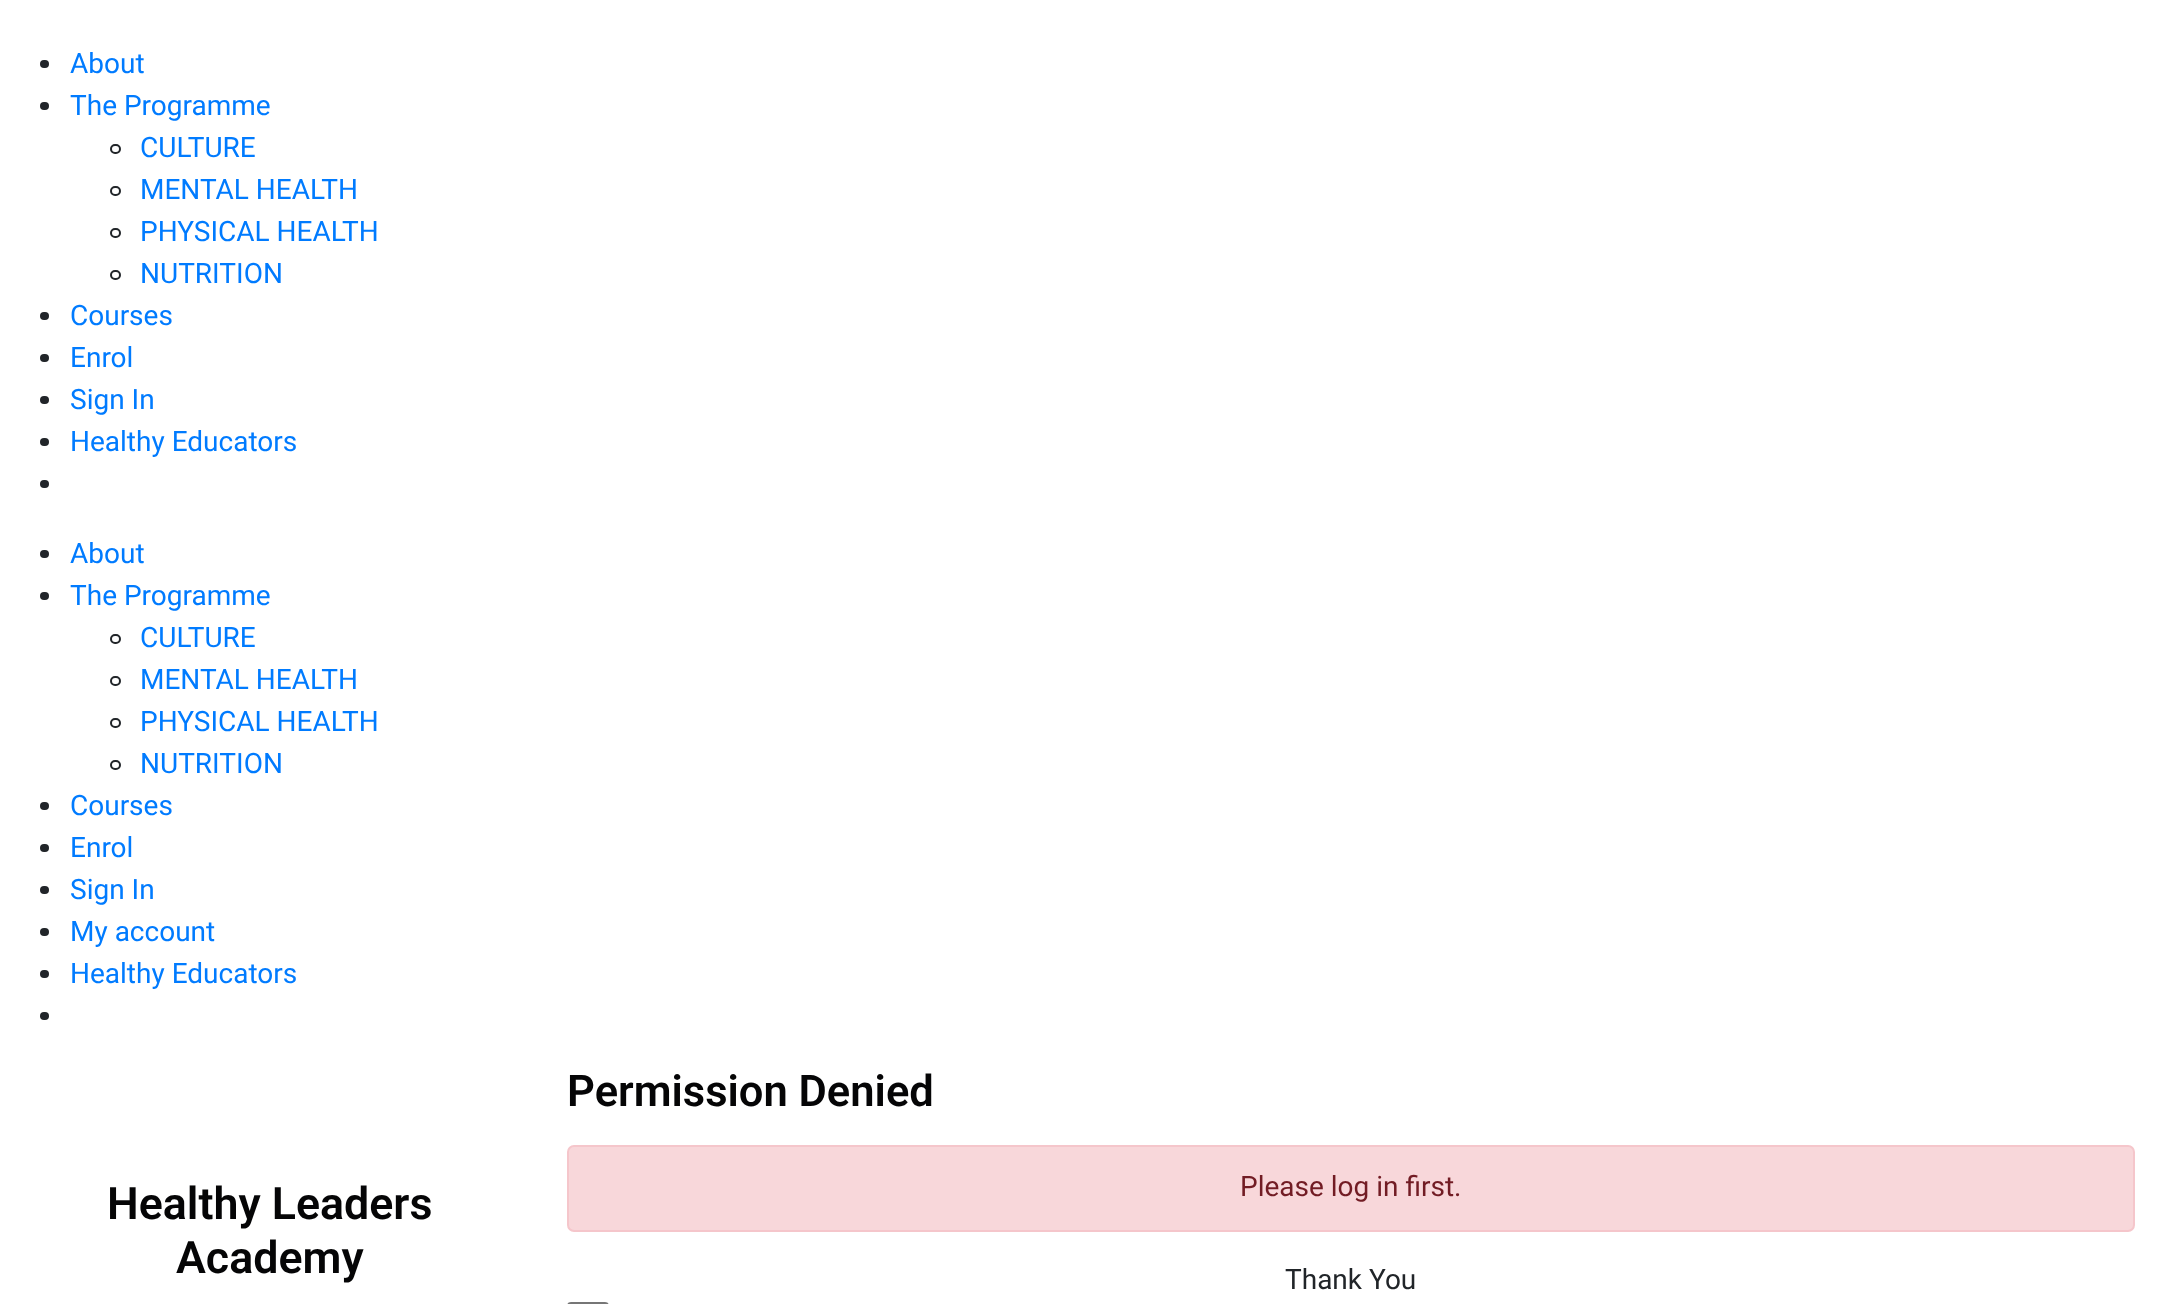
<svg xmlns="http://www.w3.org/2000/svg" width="2160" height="1304">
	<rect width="100%" height="100%" fill="#FFFFFF" />
	<rect x="40" y="60" width="9" height="8" rx="4" fill="#212529" />
	<text x="70" y="73" font-family="Roboto" font-size="28" fill="#007BFF">About</text>
	<rect x="40" y="102" width="9" height="8" rx="4" fill="#212529" />
	<text x="70" y="115" font-family="Roboto" font-size="28" fill="#007BFF">The Programme</text>
	<rect x="111" y="145" width="9" height="8" rx="4" fill="none" stroke="#212529" stroke-width="2" />
	<text x="140" y="157" font-family="Roboto" font-size="28" fill="#007BFF">CULTURE</text>
	<rect x="111" y="187" width="9" height="8" rx="4" fill="none" stroke="#212529" stroke-width="2" />
	<text x="140" y="199" font-family="Roboto" font-size="28" fill="#007BFF">MENTAL HEALTH</text>
	<rect x="111" y="229" width="9" height="8" rx="4" fill="none" stroke="#212529" stroke-width="2" />
	<text x="140" y="241" font-family="Roboto" font-size="28" fill="#007BFF">PHYSICAL HEALTH</text>
	<rect x="111" y="271" width="9" height="8" rx="4" fill="none" stroke="#212529" stroke-width="2" />
	<text x="140" y="283" font-family="Roboto" font-size="28" fill="#007BFF">NUTRITION</text>
	<rect x="40" y="312" width="9" height="8" rx="4" fill="#212529" />
	<text x="70" y="325" font-family="Roboto" font-size="28" fill="#007BFF">Courses</text>
	<rect x="40" y="354" width="9" height="8" rx="4" fill="#212529" />
	<text x="70" y="367" font-family="Roboto" font-size="28" fill="#007BFF">Enrol</text>
	<rect x="40" y="396" width="9" height="8" rx="4" fill="#212529" />
	<text x="70" y="409" font-family="Roboto" font-size="28" fill="#007BFF">Sign In</text>
	<rect x="40" y="438" width="9" height="8" rx="4" fill="#212529" />
	<text x="70" y="451" font-family="Roboto" font-size="28" fill="#007BFF">Healthy Educators</text>
	<rect x="40" y="480" width="9" height="8" rx="4" fill="#212529" />
	<rect x="40" y="550" width="9" height="8" rx="4" fill="#212529" />
	<text x="70" y="563" font-family="Roboto" font-size="28" fill="#007BFF">About</text>
	<rect x="40" y="592" width="9" height="8" rx="4" fill="#212529" />
	<text x="70" y="605" font-family="Roboto" font-size="28" fill="#007BFF">The Programme</text>
	<rect x="111" y="635" width="9" height="8" rx="4" fill="none" stroke="#212529" stroke-width="2" />
	<text x="140" y="647" font-family="Roboto" font-size="28" fill="#007BFF">CULTURE</text>
	<rect x="111" y="677" width="9" height="8" rx="4" fill="none" stroke="#212529" stroke-width="2" />
	<text x="140" y="689" font-family="Roboto" font-size="28" fill="#007BFF">MENTAL HEALTH</text>
	<rect x="111" y="719" width="9" height="8" rx="4" fill="none" stroke="#212529" stroke-width="2" />
	<text x="140" y="731" font-family="Roboto" font-size="28" fill="#007BFF">PHYSICAL HEALTH</text>
	<rect x="111" y="761" width="9" height="8" rx="4" fill="none" stroke="#212529" stroke-width="2" />
	<text x="140" y="773" font-family="Roboto" font-size="28" fill="#007BFF">NUTRITION</text>
	<rect x="40" y="802" width="9" height="8" rx="4" fill="#212529" />
	<text x="70" y="815" font-family="Roboto" font-size="28" fill="#007BFF">Courses</text>
	<rect x="40" y="844" width="9" height="8" rx="4" fill="#212529" />
	<text x="70" y="857" font-family="Roboto" font-size="28" fill="#007BFF">Enrol</text>
	<rect x="40" y="886" width="9" height="8" rx="4" fill="#212529" />
	<text x="70" y="899" font-family="Roboto" font-size="28" fill="#007BFF">Sign In</text>
	<rect x="40" y="928" width="9" height="8" rx="4" fill="#212529" />
	<text x="70" y="941" font-family="Roboto" font-size="28" fill="#007BFF">My account</text>
	<rect x="40" y="970" width="9" height="8" rx="4" fill="#212529" />
	<text x="70" y="983" font-family="Roboto" font-size="28" fill="#007BFF">Healthy Educators</text>
	<rect x="40" y="1012" width="9" height="8" rx="4" fill="#212529" />
	<g font-family="Roboto" font-size="44.75" font-weight="600" fill="#050506">
		<text x="107" y="1219">Healthy Leaders</text>
		<text x="176" y="1273">Academy</text>
	</g>
	<text x="567" y="1106" font-family="Roboto" font-size="43.5" font-weight="600" fill="#050506">Permission Denied</text>
	<rect x="568" y="1146" width="1566" height="85" rx="6" fill="#F8D7DA" stroke="#F5C6CB" stroke-width="2" />
	<text x="1240" y="1196" font-family="Roboto" font-size="28" fill="#721C24">Please log in first.</text>
	<text x="1285" y="1289" font-family="Roboto" font-size="28" fill="#212529">Thank You</text>
	<rect x="568" y="1303" width="40" height="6" rx="3" fill="none" stroke="#767676" stroke-width="2" />
</svg>
